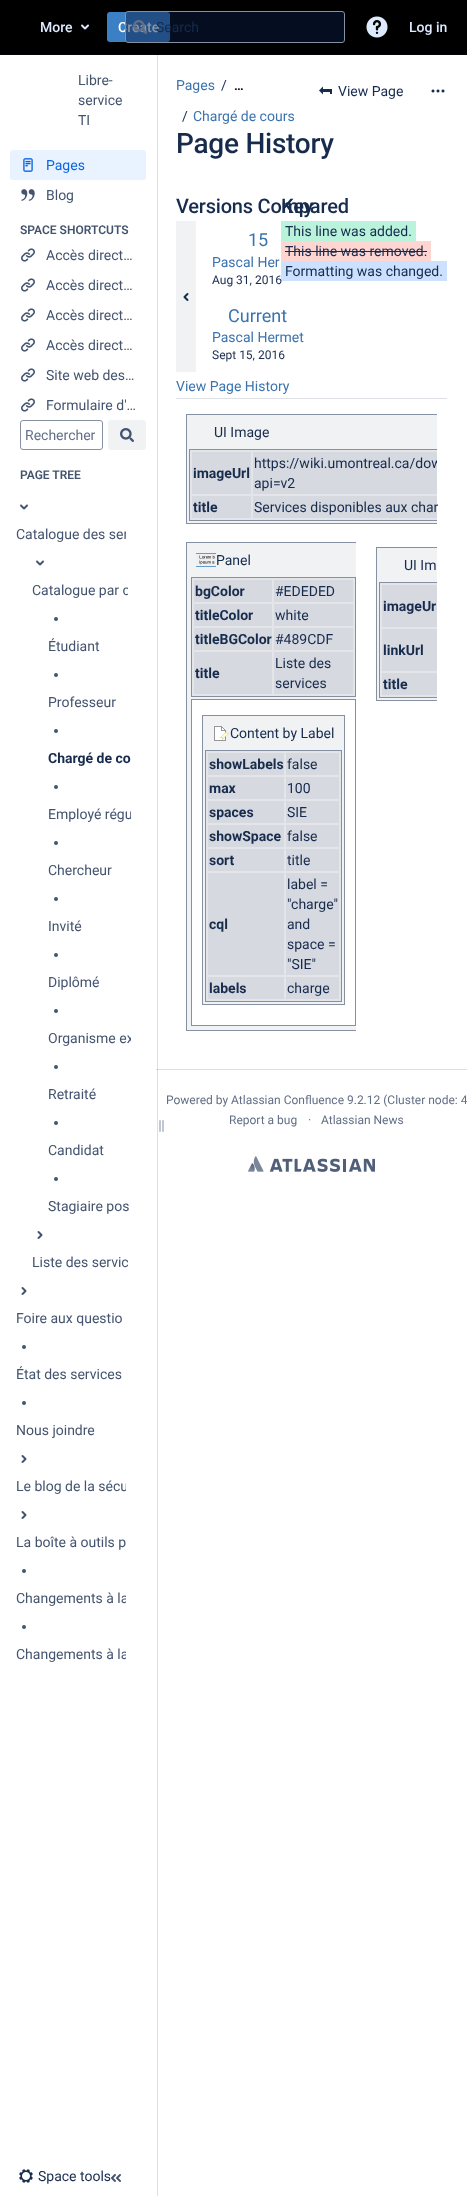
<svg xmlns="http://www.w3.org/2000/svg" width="467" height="2196">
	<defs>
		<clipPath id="clip1"><rect x="14" y="522" width="112" height="24" /></clipPath>
		<clipPath id="clip2"><rect x="30" y="578" width="98" height="24" /></clipPath>
		<clipPath id="clip3"><rect x="46" y="802" width="85" height="24" /></clipPath>
		<clipPath id="clip4"><rect x="46" y="1026" width="85" height="24" /></clipPath>
		<clipPath id="clip5"><rect x="14" y="1474" width="112" height="24" /></clipPath>
		<clipPath id="clip6"><rect x="14" y="1586" width="112" height="24" /></clipPath>
		<clipPath id="clip7"><rect x="14" y="1642" width="112" height="24" /></clipPath>
		<clipPath id="clip8"><rect x="186" y="409" width="251" height="125" /></clipPath>
		<clipPath id="clip9"><rect x="186" y="542" width="170" height="499" /></clipPath>
		<clipPath id="clip10"><rect x="376" y="542" width="61" height="169" /></clipPath>
	</defs>
	<rect width="100%" height="100%" fill="#FFFFFF" />
	<rect x="157" y="55" width="1" height="2141" fill="#DDDFE5" />
	<rect x="0" y="0" width="467" height="54" fill="#000000" />
	<rect x="0" y="54" width="467" height="1" fill="#010409" />
	<text x="40" y="32" font-family="Roboto" font-size="14" font-weight="500" fill="#DEEBFF">More</text>
	<image x="81" y="24" width="8" height="6" href="assets/img1.png" />
	<rect x="107" y="12" width="63" height="30" rx="3" fill="#3B7FC4" />
	<text x="118" y="32" font-family="Roboto" font-size="14" font-weight="500" fill="#FFFFFF">Create</text>
	<rect x="125.5" y="11.5" width="219" height="31" rx="2.5" fill="#091E42" fill-opacity="0.48" stroke="#8590A2" />
	<image x="133" y="20" width="14" height="14" href="assets/img2.png" />
	<text x="156" y="32" font-family="Roboto" font-size="14" fill="#172B4D">Search</text>
	<image x="366" y="16" width="22" height="22" href="assets/img3.png" />
	<text x="409" y="32" font-family="Roboto" font-size="14" font-weight="500" fill="#DEEBFF">Log in</text>
	<g font-family="Roboto" font-size="14" fill="#44546F">
		<text x="78" y="85">Libre-</text>
		<text x="78" y="105">service</text>
		<text x="78" y="125">TI</text>
	</g>
	<rect x="10" y="150" width="136" height="30" rx="3" fill="#E9F2FF" />
	<image x="23" y="158" width="10" height="14" href="assets/img4.png" />
	<text x="46" y="170" font-family="Roboto" font-size="14" fill="#0C66E4">Pages</text>
	<image x="21" y="189" width="14" height="12" href="assets/img5.png" />
	<text x="46" y="200" font-family="Roboto" font-size="14" fill="#44546F">Blog</text>
	<text x="20" y="234" font-family="Roboto" font-size="12" font-weight="600" fill="#44546F">SPACE SHORTCUTS</text>
	<image x="21" y="248" width="14" height="14" href="assets/img6.png" />
	<text x="46" y="260" font-family="Roboto" font-size="14" fill="#44546F">Accès direct…</text>
	<image x="21" y="278" width="14" height="14" href="assets/img6.png" />
	<text x="46" y="290" font-family="Roboto" font-size="14" fill="#44546F">Accès direct…</text>
	<image x="21" y="308" width="14" height="14" href="assets/img6.png" />
	<text x="46" y="320" font-family="Roboto" font-size="14" fill="#44546F">Accès direct…</text>
	<image x="21" y="338" width="14" height="14" href="assets/img6.png" />
	<text x="46" y="350" font-family="Roboto" font-size="14" fill="#44546F">Accès direct…</text>
	<image x="21" y="368" width="14" height="14" href="assets/img6.png" />
	<text x="46" y="380" font-family="Roboto" font-size="14" fill="#44546F">Site web des…</text>
	<image x="21" y="398" width="14" height="14" href="assets/img6.png" />
	<text x="46" y="410" font-family="Roboto" font-size="14" fill="#44546F">Formulaire d'…</text>
	<rect x="20.5" y="420.5" width="82" height="29" rx="2.5" fill="none" stroke="#8590A2" />
	<text x="25" y="440" font-family="Roboto" font-size="14" fill="#626F86">Rechercher</text>
	<rect x="108" y="420" width="38" height="30" rx="3" fill="#F0F2F4" />
	<image x="120" y="428" width="14" height="14" href="assets/img7.png" />
	<text x="20" y="479" font-family="Roboto" font-size="12" font-weight="600" fill="#44546F">PAGE TREE</text>
	<image x="20" y="504" width="8" height="6" href="assets/img8.png" />
	<g clip-path="url(#clip1)">
		<text x="16" y="539" font-family="Roboto" font-size="14" fill="#44546F">Catalogue des ser</text>
	</g>
	<image x="36" y="560" width="8" height="6" href="assets/img8.png" />
	<g clip-path="url(#clip2)">
		<text x="32" y="595" font-family="Roboto" font-size="14" fill="#44546F">Catalogue par c</text>
	</g>
	<circle cx="56" cy="619" r="2" fill="#44546F" />
	<text x="48" y="651" font-family="Roboto" font-size="14" fill="#44546F">Étudiant</text>
	<circle cx="56" cy="675" r="2" fill="#44546F" />
	<text x="48" y="707" font-family="Roboto" font-size="14" fill="#44546F">Professeur</text>
	<circle cx="56" cy="731" r="2" fill="#44546F" />
	<text x="48" y="763" font-family="Roboto" font-size="14" font-weight="700" fill="#172B4D">Chargé de co</text>
	<circle cx="56" cy="787" r="2" fill="#44546F" />
	<g clip-path="url(#clip3)">
		<text x="48" y="819" font-family="Roboto" font-size="14" fill="#44546F">Employé régu</text>
	</g>
	<circle cx="56" cy="843" r="2" fill="#44546F" />
	<text x="48" y="875" font-family="Roboto" font-size="14" fill="#44546F">Chercheur</text>
	<circle cx="56" cy="899" r="2" fill="#44546F" />
	<text x="48" y="931" font-family="Roboto" font-size="14" fill="#44546F">Invité</text>
	<circle cx="56" cy="955" r="2" fill="#44546F" />
	<text x="48" y="987" font-family="Roboto" font-size="14" fill="#44546F">Diplômé</text>
	<circle cx="56" cy="1011" r="2" fill="#44546F" />
	<g clip-path="url(#clip4)">
		<text x="48" y="1043" font-family="Roboto" font-size="14" fill="#44546F">Organisme ex</text>
	</g>
	<circle cx="56" cy="1067" r="2" fill="#44546F" />
	<text x="48" y="1099" font-family="Roboto" font-size="14" fill="#44546F">Retraité</text>
	<circle cx="56" cy="1123" r="2" fill="#44546F" />
	<text x="48" y="1155" font-family="Roboto" font-size="14" fill="#44546F">Candidat</text>
	<circle cx="56" cy="1179" r="2" fill="#44546F" />
	<text x="48" y="1211" font-family="Roboto" font-size="14" fill="#44546F">Stagiaire pos</text>
	<image x="37" y="1231" width="6" height="8" href="assets/img9.png" />
	<text x="32" y="1267" font-family="Roboto" font-size="14" fill="#44546F">Liste des servic</text>
	<image x="21" y="1287" width="6" height="8" href="assets/img9.png" />
	<text x="16" y="1323" font-family="Roboto" font-size="14" fill="#44546F">Foire aux questio</text>
	<circle cx="24" cy="1347" r="2" fill="#44546F" />
	<text x="16" y="1379" font-family="Roboto" font-size="14" fill="#44546F">État des services</text>
	<circle cx="24" cy="1403" r="2" fill="#44546F" />
	<text x="16" y="1435" font-family="Roboto" font-size="14" fill="#44546F">Nous joindre</text>
	<image x="21" y="1455" width="6" height="8" href="assets/img9.png" />
	<g clip-path="url(#clip5)">
		<text x="16" y="1491" font-family="Roboto" font-size="14" fill="#44546F">Le blog de la sécu</text>
	</g>
	<image x="21" y="1511" width="6" height="8" href="assets/img9.png" />
	<text x="16" y="1547" font-family="Roboto" font-size="14" fill="#44546F">La boîte à outils p</text>
	<circle cx="24" cy="1571" r="2" fill="#44546F" />
	<g clip-path="url(#clip6)">
		<text x="16" y="1603" font-family="Roboto" font-size="14" fill="#44546F">Changements à la</text>
	</g>
	<circle cx="24" cy="1627" r="2" fill="#44546F" />
	<g clip-path="url(#clip7)">
		<text x="16" y="1659" font-family="Roboto" font-size="14" fill="#44546F">Changements à la</text>
	</g>
	<image x="159" y="1120" width="5" height="12" href="assets/img10.png" />
	<image x="19" y="2169" width="14" height="14" href="assets/img11.png" />
	<text x="38" y="2181" font-family="Roboto" font-size="14" fill="#172B4D">Space tools</text>
	<image x="111" y="2174" width="10" height="8" href="assets/img12.png" />
	<rect x="156" y="1069" width="311" height="1" fill="#DDE0E5" />
	<rect x="157" y="1069" width="1" height="1" fill="#BFC5CE" />
	<text x="176" y="90" font-family="Roboto" font-size="14" fill="#3B73AF">Pages</text>
	<text x="221" y="90" font-family="Roboto" font-size="14" fill="#172B4D">/</text>
	<text x="234" y="90" font-family="Roboto" font-size="13" font-weight="700" fill="#000000">…</text>
	<text x="182" y="121" font-family="Roboto" font-size="14" fill="#172B4D">/</text>
	<text x="193" y="121" font-family="Roboto" font-size="14" fill="#3B73AF">Chargé de cours</text>
	<text x="176" y="153" font-family="Roboto" font-size="28" font-weight="500" letter-spacing="-0.25" fill="#172B4D">Page History</text>
	<image x="319" y="86" width="13" height="9" href="assets/img13.png" />
	<text x="338" y="96" font-family="Roboto" font-size="14" fill="#172B4D">View Page</text>
	<image x="431" y="89" width="14" height="4" href="assets/img14.png" />
	<rect x="176" y="398" width="271" height="1" fill="#DDE0E5" />
	<g font-family="Roboto" font-size="20" font-weight="500" letter-spacing="-0.2" fill="#172B4D">
		<text x="176" y="213">Versions Compared</text>
		<text x="281" y="213">Key</text>
	</g>
	<rect x="281" y="221" width="135" height="20" fill="#BAF3DB" />
	<text x="285" y="236" font-family="Roboto" font-size="14" fill="#172B4D">This line was added.</text>
	<rect x="281" y="241" width="150" height="20" fill="#FFD5D2" />
	<text x="285" y="256" font-family="Roboto" font-size="14" fill="#172B4D">This line was removed.</text>
	<rect x="285" y="251" width="142" height="1" fill="#172B4D" />
	<rect x="281" y="261" width="166" height="20" fill="#CCE0FF" />
	<text x="285" y="276" font-family="Roboto" font-size="14" fill="#172B4D">Formatting was changed.</text>
	<text x="248" y="246" font-family="Roboto" font-size="18" fill="#3B73AF">15</text>
	<text x="212" y="267" font-family="Roboto" font-size="14" fill="#3B73AF">Pascal Her</text>
	<text x="212" y="284" font-family="Roboto" font-size="12" fill="#172B4D">Aug 31, 2016</text>
	<text x="228" y="322" font-family="Roboto" font-size="18" fill="#3B73AF">Current</text>
	<text x="212" y="342" font-family="Roboto" font-size="14" fill="#3B73AF">Pascal Hermet</text>
	<text x="212" y="359" font-family="Roboto" font-size="12" fill="#172B4D">Sept 15, 2016</text>
	<rect x="176" y="221" width="20" height="151" fill="#F0F2F4" />
	<image x="183" y="293" width="6" height="8" href="assets/img15.png" />
	<text x="176" y="391" font-family="Roboto" font-size="14" fill="#3B73AF">View Page History</text>
	<rect x="187" y="415" width="250" height="108" fill="#F1F2F4" />
	<g clip-path="url(#clip8)">
		<rect x="186.5" y="414.5" width="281" height="109" fill="none" stroke="#8590A2" />
	</g>
	<text x="214" y="437" font-family="Roboto" font-size="14" fill="#172B4D">UI Image</text>
	<rect x="190" y="450" width="247" height="70" fill="#E3E5E9" />
	<g clip-path="url(#clip8)">
		<rect x="189.5" y="449.5" width="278" height="71" fill="none" stroke="#8590A2" />
	</g>
	<rect x="192" y="452" width="59" height="42" fill="#D6D9DF" />
	<text x="193" y="478" font-family="Roboto" font-size="14" font-weight="700" fill="#172B4D">imageUrl</text>
	<rect x="253" y="452" width="184" height="42" fill="#D6D9DF" />
	<g clip-path="url(#clip8)">
		<text x="254" y="468" font-family="Roboto" font-size="14" fill="#172B4D">https://wiki.umontreal.ca/dow</text>
	</g>
	<text x="254" y="488" font-family="Roboto" font-size="14" fill="#172B4D">api=v2</text>
	<rect x="192" y="496" width="59" height="22" fill="#D6D9DF" />
	<text x="193" y="512" font-family="Roboto" font-size="14" font-weight="700" fill="#172B4D">title</text>
	<rect x="253" y="496" width="184" height="22" fill="#D6D9DF" />
	<text x="254" y="512" font-family="Roboto" font-size="14" fill="#172B4D">Services disponibles aux char</text>
	<rect x="187" y="543" width="169" height="487" fill="#F1F2F4" />
	<g clip-path="url(#clip9)">
		<rect x="186.5" y="542.5" width="174" height="488" fill="none" stroke="#8590A2" />
	</g>
	<image x="196" y="553" width="20" height="14" href="assets/img16.png" />
	<text x="216" y="565" font-family="Roboto" font-size="14" fill="#172B4D">Panel</text>
	<rect x="191.5" y="577.5" width="164" height="119" fill="#E3E5E9" stroke="#8590A2" />
	<rect x="194" y="580" width="78" height="22" fill="#D6D9DF" />
	<text x="195" y="596" font-family="Roboto" font-size="14" font-weight="700" fill="#172B4D">bgColor</text>
	<rect x="274" y="580" width="79" height="22" fill="#D6D9DF" />
	<text x="275" y="596" font-family="Roboto" font-size="14" fill="#172B4D">#EDEDED</text>
	<rect x="194" y="604" width="78" height="22" fill="#D6D9DF" />
	<text x="195" y="620" font-family="Roboto" font-size="14" font-weight="700" fill="#172B4D">titleColor</text>
	<rect x="274" y="604" width="79" height="22" fill="#D6D9DF" />
	<text x="275" y="620" font-family="Roboto" font-size="14" fill="#172B4D">white</text>
	<rect x="194" y="628" width="78" height="22" fill="#D6D9DF" />
	<text x="195" y="644" font-family="Roboto" font-size="14" font-weight="700" fill="#172B4D">titleBGColor</text>
	<rect x="274" y="628" width="79" height="22" fill="#D6D9DF" />
	<text x="275" y="644" font-family="Roboto" font-size="14" fill="#172B4D">#489CDF</text>
	<rect x="194" y="652" width="78" height="42" fill="#D6D9DF" />
	<text x="195" y="678" font-family="Roboto" font-size="14" font-weight="700" fill="#172B4D">title</text>
	<rect x="274" y="652" width="79" height="42" fill="#D6D9DF" />
	<g font-family="Roboto" font-size="14" fill="#172B4D">
		<text x="275" y="668">Liste des</text>
		<text x="275" y="688">services</text>
	</g>
	<rect x="191.5" y="699.5" width="164" height="326" fill="#FFFFFF" stroke="#8590A2" />
	<rect x="202.5" y="715.5" width="142" height="289" fill="#F1F2F4" stroke="#8590A2" />
	<image x="214" y="726" width="15" height="15" href="assets/img17.png" />
	<text x="230" y="738" font-family="Roboto" font-size="14" fill="#172B4D">Content by Label</text>
	<rect x="205.5" y="750.5" width="136" height="251" fill="#E3E5E9" stroke="#8590A2" />
	<rect x="208" y="753" width="76" height="22" fill="#D6D9DF" />
	<text x="209" y="769" font-family="Roboto" font-size="14" font-weight="700" fill="#172B4D">showLabels</text>
	<rect x="286" y="753" width="53" height="22" fill="#D6D9DF" />
	<text x="287" y="769" font-family="Roboto" font-size="14" fill="#172B4D">false</text>
	<rect x="208" y="777" width="76" height="22" fill="#D6D9DF" />
	<text x="209" y="793" font-family="Roboto" font-size="14" font-weight="700" fill="#172B4D">max</text>
	<rect x="286" y="777" width="53" height="22" fill="#D6D9DF" />
	<text x="287" y="793" font-family="Roboto" font-size="14" fill="#172B4D">100</text>
	<rect x="208" y="801" width="76" height="22" fill="#D6D9DF" />
	<text x="209" y="817" font-family="Roboto" font-size="14" font-weight="700" fill="#172B4D">spaces</text>
	<rect x="286" y="801" width="53" height="22" fill="#D6D9DF" />
	<text x="287" y="817" font-family="Roboto" font-size="14" fill="#172B4D">SIE</text>
	<rect x="208" y="825" width="76" height="22" fill="#D6D9DF" />
	<text x="209" y="841" font-family="Roboto" font-size="14" font-weight="700" fill="#172B4D">showSpace</text>
	<rect x="286" y="825" width="53" height="22" fill="#D6D9DF" />
	<text x="287" y="841" font-family="Roboto" font-size="14" fill="#172B4D">false</text>
	<rect x="208" y="849" width="76" height="22" fill="#D6D9DF" />
	<text x="209" y="865" font-family="Roboto" font-size="14" font-weight="700" fill="#172B4D">sort</text>
	<rect x="286" y="849" width="53" height="22" fill="#D6D9DF" />
	<text x="287" y="865" font-family="Roboto" font-size="14" fill="#172B4D">title</text>
	<rect x="208" y="873" width="76" height="102" fill="#D6D9DF" />
	<text x="209" y="929" font-family="Roboto" font-size="14" font-weight="700" fill="#172B4D">cql</text>
	<rect x="286" y="873" width="53" height="102" fill="#D6D9DF" />
	<g font-family="Roboto" font-size="14" fill="#172B4D">
		<text x="287" y="889">label =</text>
		<text x="287" y="909">"charge"</text>
		<text x="287" y="929">and</text>
		<text x="287" y="949">space =</text>
		<text x="287" y="969">"SIE"</text>
	</g>
	<rect x="208" y="977" width="76" height="22" fill="#D6D9DF" />
	<text x="209" y="993" font-family="Roboto" font-size="14" font-weight="700" fill="#172B4D">labels</text>
	<rect x="286" y="977" width="53" height="22" fill="#D6D9DF" />
	<text x="287" y="993" font-family="Roboto" font-size="14" fill="#172B4D">charge</text>
	<rect x="377" y="548" width="60" height="152" fill="#F1F2F4" />
	<g clip-path="url(#clip10)">
		<rect x="376.5" y="547.5" width="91" height="153" fill="none" stroke="#8590A2" />
	</g>
	<text x="404" y="570" font-family="Roboto" font-size="14" fill="#172B4D">UI Im</text>
	<rect x="380" y="583" width="57" height="114" fill="#E3E5E9" />
	<g clip-path="url(#clip10)">
		<rect x="379.5" y="582.5" width="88" height="115" fill="none" stroke="#8590A2" />
	</g>
	<rect x="382" y="585" width="55" height="42" fill="#D6D9DF" />
	<text x="383" y="611" font-family="Roboto" font-size="14" font-weight="700" fill="#172B4D">imageUr</text>
	<rect x="382" y="629" width="55" height="42" fill="#D6D9DF" />
	<text x="383" y="655" font-family="Roboto" font-size="14" font-weight="700" fill="#172B4D">linkUrl</text>
	<rect x="382" y="673" width="55" height="22" fill="#D6D9DF" />
	<text x="383" y="689" font-family="Roboto" font-size="14" font-weight="700" fill="#172B4D">title</text>
	<g font-family="Roboto" font-size="12" fill="#626F86">
		<text x="166" y="1104">Powered by Atlassian Confluence 9.2.12 (Cluster node: 4</text>
		<text x="229" y="1124">Report a bug</text>
		<text x="308" y="1124">·</text>
		<text x="321" y="1124">Atlassian News</text>
	</g>
	<image x="248" y="1156" width="127" height="16" href="assets/img18.png" />
</svg>
